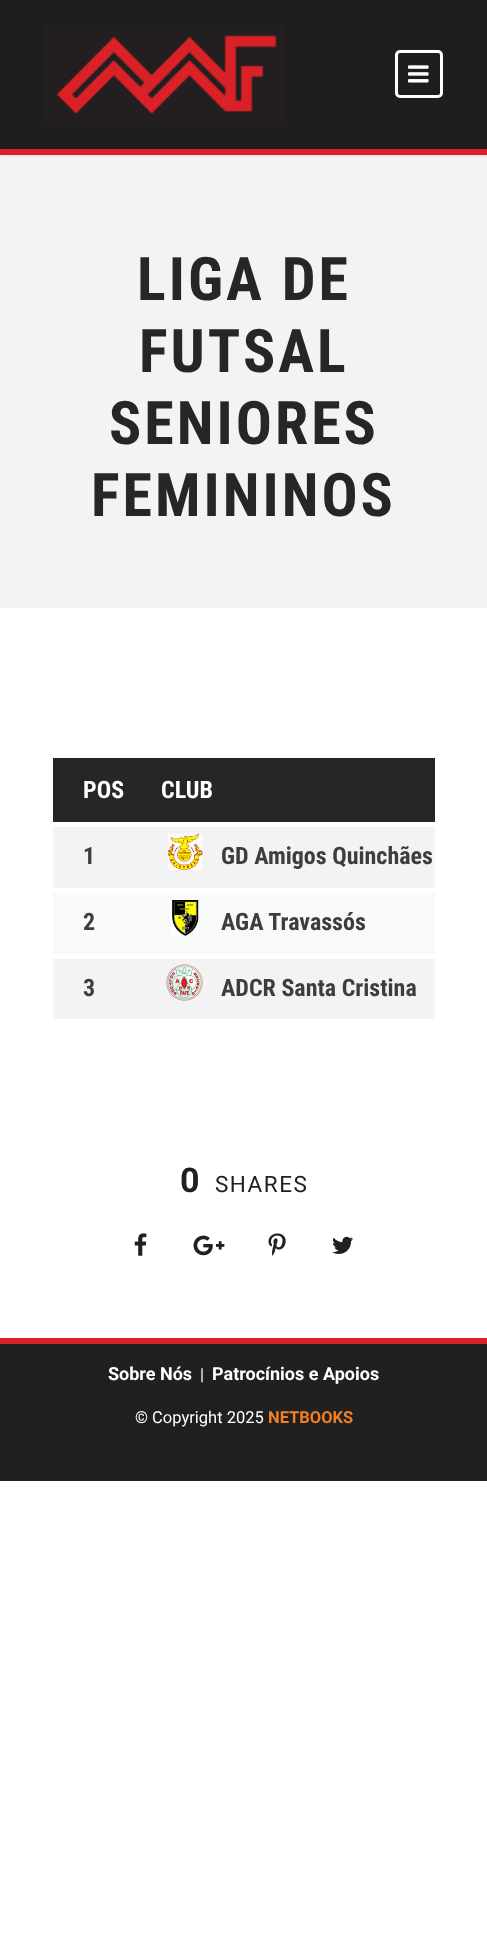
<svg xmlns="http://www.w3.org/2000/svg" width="487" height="1943">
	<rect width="100%" height="100%" fill="#FFFFFF" />
	<rect x="0" y="155" width="487" height="453" fill="#F3F3F3" />
	<rect x="0" y="2" width="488" height="154" fill="#000000" fill-opacity="0.1" filter="blur(1.5px)" />
	<rect x="0" y="0" width="487" height="149" fill="#1E1E1E" />
	<rect x="0" y="149" width="487" height="6" fill="#DA2128" />
	<image x="45" y="23" width="240" height="103" href="assets/img1.png" />
	<rect x="396.5" y="51.5" width="45" height="45" rx="3.5" fill="none" stroke="#FFFFFF" stroke-width="3" />
	<image x="408" y="65" width="21" height="18" href="assets/img2.png" />
	<g font-family="Roboto Condensed" font-size="60" font-weight="700" letter-spacing="3" fill="#262626">
		<text x="137" y="300">LIGA DE</text>
		<text x="139" y="372">FUTSAL</text>
		<text x="109" y="444">SENIORES</text>
		<text x="91" y="516">FEMININOS</text>
	</g>
	<rect x="53" y="758" width="382" height="64" fill="#262626" />
	<g font-family="Roboto Condensed" font-size="24" font-weight="700" fill="#FFFFFF">
		<text x="83" y="798">POS</text>
		<text x="161" y="798">CLUB</text>
	</g>
	<rect x="53" y="827" width="382" height="61" fill="#F3F3F3" />
	<text x="83" y="864" font-family="Roboto Condensed" font-size="24" font-weight="700" fill="#3D3D3D">1</text>
	<image x="168" y="834" width="35" height="36" href="assets/img3.png" />
	<text x="221" y="864" font-family="Roboto Condensed" font-size="24" font-weight="700" fill="#3D3D3D">GD Amigos Quinchães</text>
	<rect x="53" y="893" width="382" height="61" fill="#F9F9F9" />
	<text x="83" y="930" font-family="Roboto Condensed" font-size="24" font-weight="700" fill="#3D3D3D">2</text>
	<image x="171" y="900" width="28" height="36" href="assets/img4.png" />
	<text x="221" y="930" font-family="Roboto Condensed" font-size="24" font-weight="700" fill="#3D3D3D">AGA Travassós</text>
	<rect x="53" y="959" width="382" height="60" fill="#F3F3F3" />
	<text x="83" y="996" font-family="Roboto Condensed" font-size="24" font-weight="700" fill="#3D3D3D">3</text>
	<image x="166" y="964" width="37" height="37" href="assets/img5.png" />
	<text x="221" y="996" font-family="Roboto Condensed" font-size="24" font-weight="700" fill="#3D3D3D">ADCR Santa Cristina</text>
	<text x="180" y="1192" font-family="Roboto" font-size="34" font-weight="700" fill="#202020">0</text>
	<text x="215" y="1192" font-family="Roboto" font-size="22.5" letter-spacing="1.5" fill="#202020">SHARES</text>
	<image x="134" y="1233" width="13" height="23" href="assets/img6.png" />
	<image x="193" y="1235" width="32" height="21" href="assets/img7.png" />
	<image x="268" y="1233" width="18" height="23" href="assets/img8.png" />
	<image x="332" y="1236" width="21" height="18" href="assets/img9.png" />
	<rect x="0" y="1344" width="487" height="137" fill="#202020" />
	<rect x="0" y="1338" width="487" height="6" fill="#DA2128" />
	<text x="108" y="1380" font-family="Roboto" font-size="18" font-weight="700" fill="#FFFFFF">Sobre Nós</text>
	<text x="200" y="1380" font-family="Roboto" font-size="16.5" fill="#FFFFFF">|</text>
	<text x="212" y="1380" font-family="Roboto" font-size="18" font-weight="700" fill="#FFFFFF">Patrocínios e Apoios</text>
	<text x="135" y="1423" font-family="Roboto" font-size="16.5" fill="#FFFFFF">© Copyright 2025</text>
	<text x="268" y="1423" font-family="Roboto" font-size="16.5" font-weight="700" fill="#F57F20">NETBOOKS</text>
</svg>
